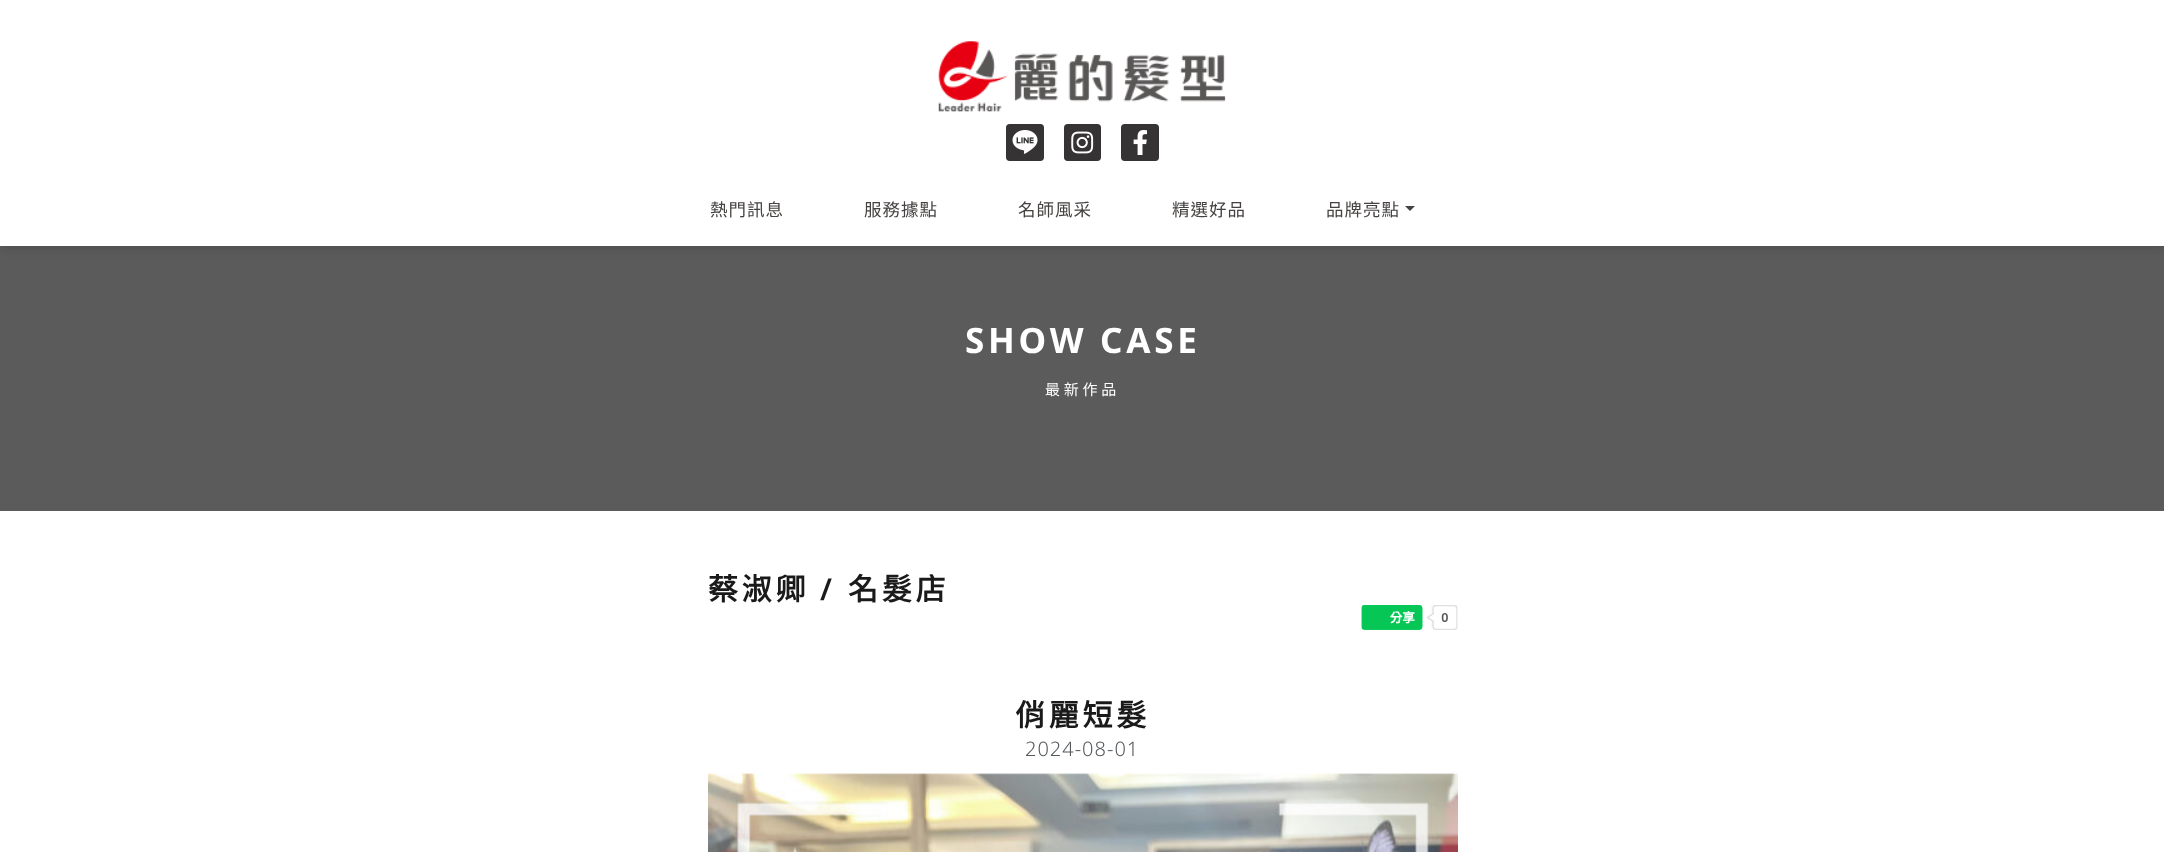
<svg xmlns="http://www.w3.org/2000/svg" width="2164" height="852">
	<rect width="100%" height="100%" fill="#FFFFFF" />
	<image x="938" y="41" width="288" height="71" href="assets/img1.png" />
	<rect x="0" y="246" width="2164" height="265" fill="#5B5B5B" />
	<rect x="0" y="174" width="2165" height="72" fill="#000000" fill-opacity="0.2" filter="blur(6px)" />
	<rect x="1006" y="124" width="38" height="37" rx="4" fill="#030000" />
	<rect x="1006" y="124" width="38" height="37" rx="4" fill="#FFFFFF" fill-opacity="0.2" />
	<image x="1012" y="130" width="26" height="24" href="assets/img2.png" />
	<rect x="1064" y="124" width="37" height="37" rx="4" fill="#030000" />
	<rect x="1064" y="124" width="37" height="37" rx="4" fill="#FFFFFF" fill-opacity="0.2" />
	<image x="1071" y="131" width="23" height="23" href="assets/img3.png" />
	<rect x="1121" y="124" width="38" height="37" rx="4" fill="#030000" />
	<rect x="1121" y="124" width="38" height="37" rx="4" fill="#FFFFFF" fill-opacity="0.2" />
	<image x="1133" y="130" width="14" height="25" href="assets/img4.png" />
	<rect x="0" y="164" width="2164" height="82" fill="#FFFFFF" />
	<g font-family="Noto Sans CJK TC" font-size="17.5" letter-spacing="1" fill="#454241">
		<text x="710" y="216">熱門訊息</text>
		<text x="864" y="216">服務據點</text>
		<text x="1018" y="216">名師風采</text>
		<text x="1172" y="216">精選好品</text>
		<text x="1326" y="216">品牌亮點</text>
	</g>
	<path d="M1405 206H1415L1410 211Z" fill="#454241" />
	<text x="965" y="353" font-family="Noto Sans" font-size="35" font-weight="700" letter-spacing="3.75" fill="#FFFFFF">SHOW CASE</text>
	<text x="1045" y="395" font-family="Noto Sans CJK TC" font-size="15" letter-spacing="3.75" fill="#FFFFFF">最新作品</text>
	<text x="708" y="600" font-family="Noto Sans CJK TC" font-size="30" font-weight="700" letter-spacing="3.75" fill="#1A1A1A">蔡淑卿</text>
	<text x="820" y="600" font-family="Noto Sans" font-size="30" font-weight="600" letter-spacing="3.75" fill="#1A1A1A">/</text>
	<text x="848" y="600" font-family="Noto Sans CJK TC" font-size="30" font-weight="700" letter-spacing="3.75" fill="#1A1A1A">名髮店</text>
	<image x="1361" y="605" width="97" height="25" href="assets/img5.png" />
	<text x="1015" y="726" font-family="Noto Sans CJK TC" font-size="30" font-weight="700" letter-spacing="3.75" fill="#1A1A1A">俏麗短髮</text>
	<text x="1025" y="756" font-family="Noto Sans" font-size="20" font-weight="300" letter-spacing="1" fill="#55595C">2024-08-01</text>
	<image x="708" y="773" width="750" height="79" href="assets/img6.png" />
</svg>
